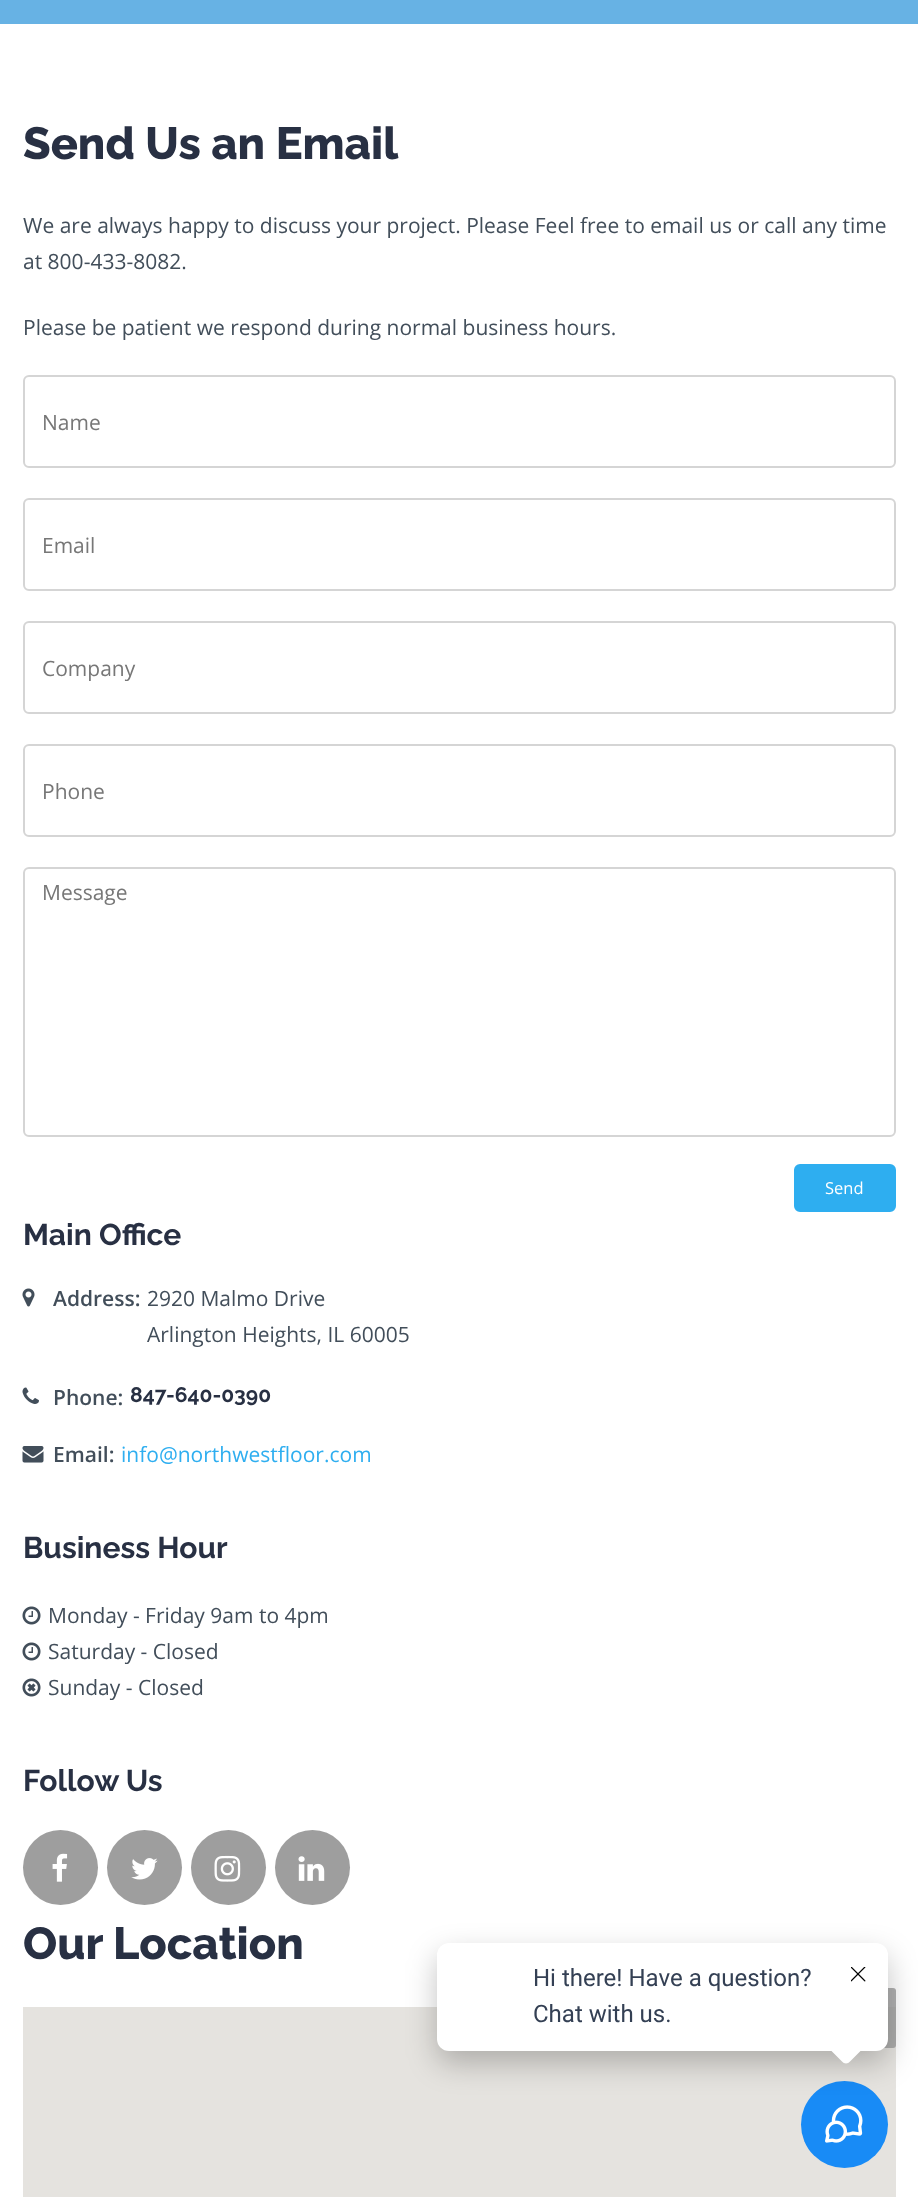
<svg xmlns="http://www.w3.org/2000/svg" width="918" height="2197">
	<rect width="100%" height="100%" fill="#FFFFFF" />
	<rect x="0" y="0" width="918" height="24" fill="#67B2E4" />
	<text x="23" y="159" font-family="Raleway" font-size="45" font-weight="800" fill="#283043">Send Us an Email</text>
	<g font-family="Open Sans" font-size="21" fill="#424E5A">
		<text x="23" y="233">We are always happy to discuss your project. Please Feel free to email us or call any time</text>
		<text x="23" y="269">at 800-433-8082.</text>
		<text x="23" y="335">Please be patient we respond during normal business hours.</text>
	</g>
	<rect x="24" y="376" width="871" height="91" rx="5" fill="none" stroke="#D5D5D5" stroke-width="2" />
	<text x="42" y="430" font-family="Open Sans" font-size="21" fill="#777777">Name</text>
	<rect x="24" y="499" width="871" height="91" rx="5" fill="none" stroke="#D5D5D5" stroke-width="2" />
	<text x="42" y="553" font-family="Open Sans" font-size="21" fill="#777777">Email</text>
	<rect x="24" y="622" width="871" height="91" rx="5" fill="none" stroke="#D5D5D5" stroke-width="2" />
	<text x="42" y="676" font-family="Open Sans" font-size="21" fill="#777777">Company</text>
	<rect x="24" y="745" width="871" height="91" rx="5" fill="none" stroke="#D5D5D5" stroke-width="2" />
	<text x="42" y="799" font-family="Open Sans" font-size="21" fill="#777777">Phone</text>
	<rect x="24" y="868" width="871" height="268" rx="5" fill="none" stroke="#D5D5D5" stroke-width="2" />
	<text x="42" y="900" font-family="Open Sans" font-size="21" fill="#777777">Message</text>
	<rect x="795" y="1165" width="100" height="46" rx="5" fill="#2EAEF0" stroke="#2EAEF0" stroke-width="2" />
	<text x="825" y="1194" font-family="Open Sans" font-size="16.5" fill="#FFFFFF">Send</text>
	<text x="23" y="1245" font-family="Raleway" font-size="30" font-weight="700" fill="#283043">Main Office</text>
	<image x="22" y="1288" width="13" height="19" href="assets/img1.png" />
	<text x="53" y="1306" font-family="Open Sans" font-size="21" font-weight="600" fill="#424E5A">Address:</text>
	<g font-family="Open Sans" font-size="21" fill="#424E5A">
		<text x="147" y="1306">2920 Malmo Drive</text>
		<text x="147" y="1342">Arlington Heights, IL 60005</text>
	</g>
	<image x="22" y="1387" width="17" height="17" href="assets/img2.png" />
	<text x="53" y="1405" font-family="Open Sans" font-size="21" font-weight="600" fill="#424E5A">Phone:</text>
	<text x="130" y="1402" font-family="Raleway" font-size="21" font-weight="700" fill="#283043">847-640-0390</text>
	<image x="22" y="1446" width="22" height="17" href="assets/img3.png" />
	<text x="53" y="1462" font-family="Open Sans" font-size="21" font-weight="600" fill="#424E5A">Email:</text>
	<text x="121" y="1462" font-family="Open Sans" font-size="21" fill="#2EAEF0">info@northwestfloor.com</text>
	<text x="23" y="1558" font-family="Raleway" font-size="30" font-weight="700" fill="#283043">Business Hour</text>
	<image x="22" y="1606" width="19" height="19" href="assets/img4.png" />
	<text x="48" y="1623" font-family="Open Sans" font-size="21" fill="#424E5A">Monday - Friday 9am to 4pm</text>
	<image x="22" y="1642" width="19" height="19" href="assets/img4.png" />
	<text x="48" y="1659" font-family="Open Sans" font-size="21" fill="#424E5A">Saturday - Closed</text>
	<image x="22" y="1678" width="19" height="19" href="assets/img5.png" />
	<text x="48" y="1695" font-family="Open Sans" font-size="21" fill="#424E5A">Sunday - Closed</text>
	<text x="23" y="1791" font-family="Raleway" font-size="30" font-weight="700" fill="#283043">Follow Us</text>
	<circle cx="60.5" cy="1867.5" r="37.5" fill="#9E9E9E" />
	<image x="52" y="1853" width="16" height="29" href="assets/img6.png" />
	<circle cx="144.5" cy="1867.5" r="37.5" fill="#9E9E9E" />
	<image x="131" y="1858" width="27" height="22" href="assets/img7.png" />
	<circle cx="228.5" cy="1867.5" r="37.5" fill="#9E9E9E" />
	<image x="214" y="1855" width="27" height="27" href="assets/img8.png" />
	<circle cx="312.5" cy="1867.5" r="37.5" fill="#9E9E9E" />
	<image x="298" y="1856" width="27" height="25" href="assets/img9.png" />
	<text x="23" y="1959" font-family="Raleway" font-size="45" font-weight="800" fill="#283043">Our Location</text>
	<rect x="23" y="2007" width="873" height="190" fill="#E5E3DF" />
	<rect x="836" y="1988" width="60" height="60" rx="3" fill="#9E9E9E" fill-opacity="0.8" />
	<circle cx="844.5" cy="2124.5" r="43.5" fill="#188BF6" />
	<image x="825" y="2105" width="38" height="38" href="assets/img11.png" />
	<rect x="437" y="1955" width="451" height="108" rx="12" fill="#000000" fill-opacity="0.24" filter="blur(15px)" />
	<rect x="437" y="1943" width="451" height="108" rx="12" fill="#FFFFFF" />
	<g font-family="Roboto" font-size="24" fill="#344054">
		<text x="533" y="1986">Hi there! Have a question?</text>
		<text x="533" y="2022">Chat with us.</text>
	</g>
	<path d="M850 2027.5L863 2040.5C865.5 2042.5 865.5 2046.5 863 2048.5L850 2061.5C848 2064 844 2064 842 2061.5L829 2048.5C826.5 2046.5 826.5 2042.5 829 2040.5L842 2027.5C844 2025 848 2025 850 2027.5Z" fill="#FFFFFF" />
	<image x="851" y="1967" width="15" height="15" href="assets/img10.png" />
</svg>
